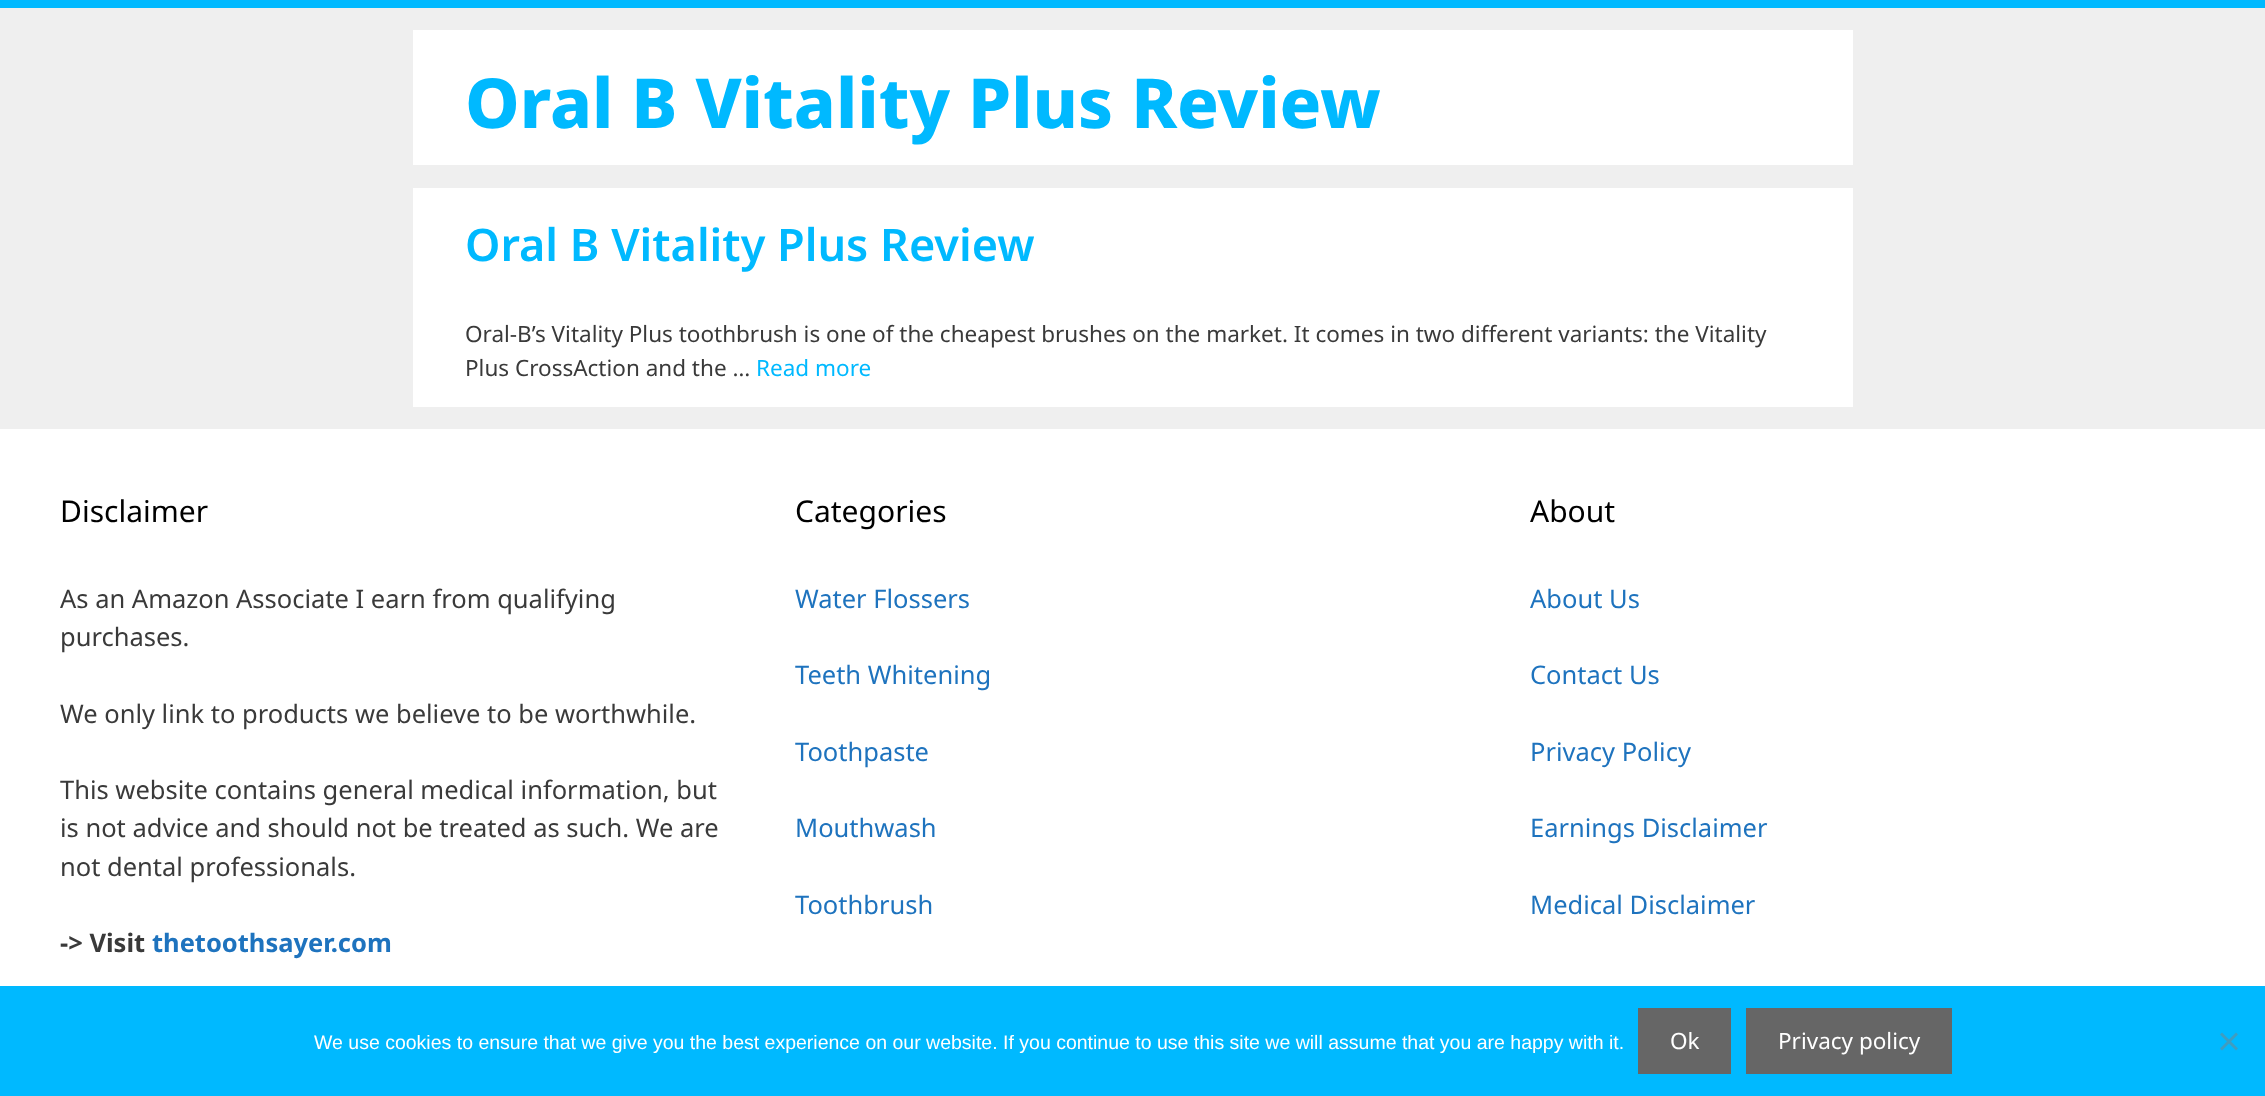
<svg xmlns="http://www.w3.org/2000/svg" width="2265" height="1096">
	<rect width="100%" height="100%" fill="#EFEFEF" />
	<rect x="0" y="0" width="2265" height="8" fill="#00B9FF" />
	<rect x="413" y="30" width="1440" height="135" fill="#FFFFFF" />
	<text x="465" y="128" font-family="Noto Sans" font-size="69" font-weight="800" fill="#00B9FF">Oral B Vitality Plus Review</text>
	<rect x="413" y="188" width="1440" height="219" fill="#FFFFFF" />
	<text x="465" y="261" font-family="Noto Sans" font-size="45" font-weight="600" fill="#00B9FF">Oral B Vitality Plus Review</text>
	<g font-family="Noto Sans" font-size="22.5" fill="#3A3A3A">
		<text x="465" y="342">Oral-B’s Vitality Plus toothbrush is one of the cheapest brushes on the market. It comes in two different variants: the Vitality</text>
		<text x="465" y="376">Plus CrossAction and the …</text>
	</g>
	<text x="756" y="376" font-family="Noto Sans" font-size="22.5" fill="#00B9FF">Read more</text>
	<rect x="0" y="429" width="2265" height="557" fill="#FFFFFF" />
	<text x="60" y="522" font-family="Noto Sans" font-size="30" fill="#000000">Disclaimer</text>
	<g font-family="Noto Sans" font-size="25.5" fill="#3A3A3A">
		<text x="60" y="608">As an Amazon Associate I earn from qualifying</text>
		<text x="60" y="646">purchases.</text>
		<text x="60" y="723">We only link to products we believe to be worthwhile.</text>
		<text x="60" y="799">This website contains general medical information, but</text>
		<text x="60" y="837">is not advice and should not be treated as such. We are</text>
		<text x="60" y="876">not dental professionals.</text>
	</g>
	<text x="60" y="952" font-family="Noto Sans" font-size="25.5" font-weight="700" fill="#3A3A3A">-&gt; Visit</text>
	<text x="152" y="952" font-family="Noto Sans" font-size="25.5" font-weight="700" fill="#1E73BE">thetoothsayer.com</text>
	<text x="795" y="522" font-family="Noto Sans" font-size="30" fill="#000000">Categories</text>
	<g font-family="Noto Sans" font-size="25.5" fill="#1E73BE">
		<text x="795" y="608">Water Flossers</text>
		<text x="795" y="684">Teeth Whitening</text>
		<text x="795" y="761">Toothpaste</text>
		<text x="795" y="837">Mouthwash</text>
		<text x="795" y="914">Toothbrush</text>
	</g>
	<text x="1530" y="522" font-family="Noto Sans" font-size="30" fill="#000000">About</text>
	<g font-family="Noto Sans" font-size="25.5" fill="#1E73BE">
		<text x="1530" y="608">About Us</text>
		<text x="1530" y="684">Contact Us</text>
		<text x="1530" y="761">Privacy Policy</text>
		<text x="1530" y="837">Earnings Disclaimer</text>
		<text x="1530" y="914">Medical Disclaimer</text>
	</g>
	<rect x="0" y="986" width="2265" height="110" fill="#00B9FF" />
	<text x="314" y="1049" font-family="Liberation Sans" font-size="19.5" fill="#FFFFFF">We use cookies to ensure that we give you the best experience on our website. If you continue to use this site we will assume that you are happy with it.</text>
	<rect x="1638" y="1008" width="93" height="66" fill="#666666" />
	<text x="1670" y="1049" font-family="Noto Sans" font-size="22.5" fill="#FFFFFF">Ok</text>
	<rect x="1746" y="1008" width="206" height="66" fill="#666666" />
	<text x="1778" y="1049" font-family="Noto Sans" font-size="22.5" fill="#FFFFFF">Privacy policy</text>
	<path d="M2236 1032.5L2238 1034.5L2222 1050.5L2220 1048.5Z" fill="#409DC0" />
	<path d="M2220 1034.5L2222 1032.5L2238 1048.5L2236 1050.5Z" fill="#409DC0" />
</svg>
